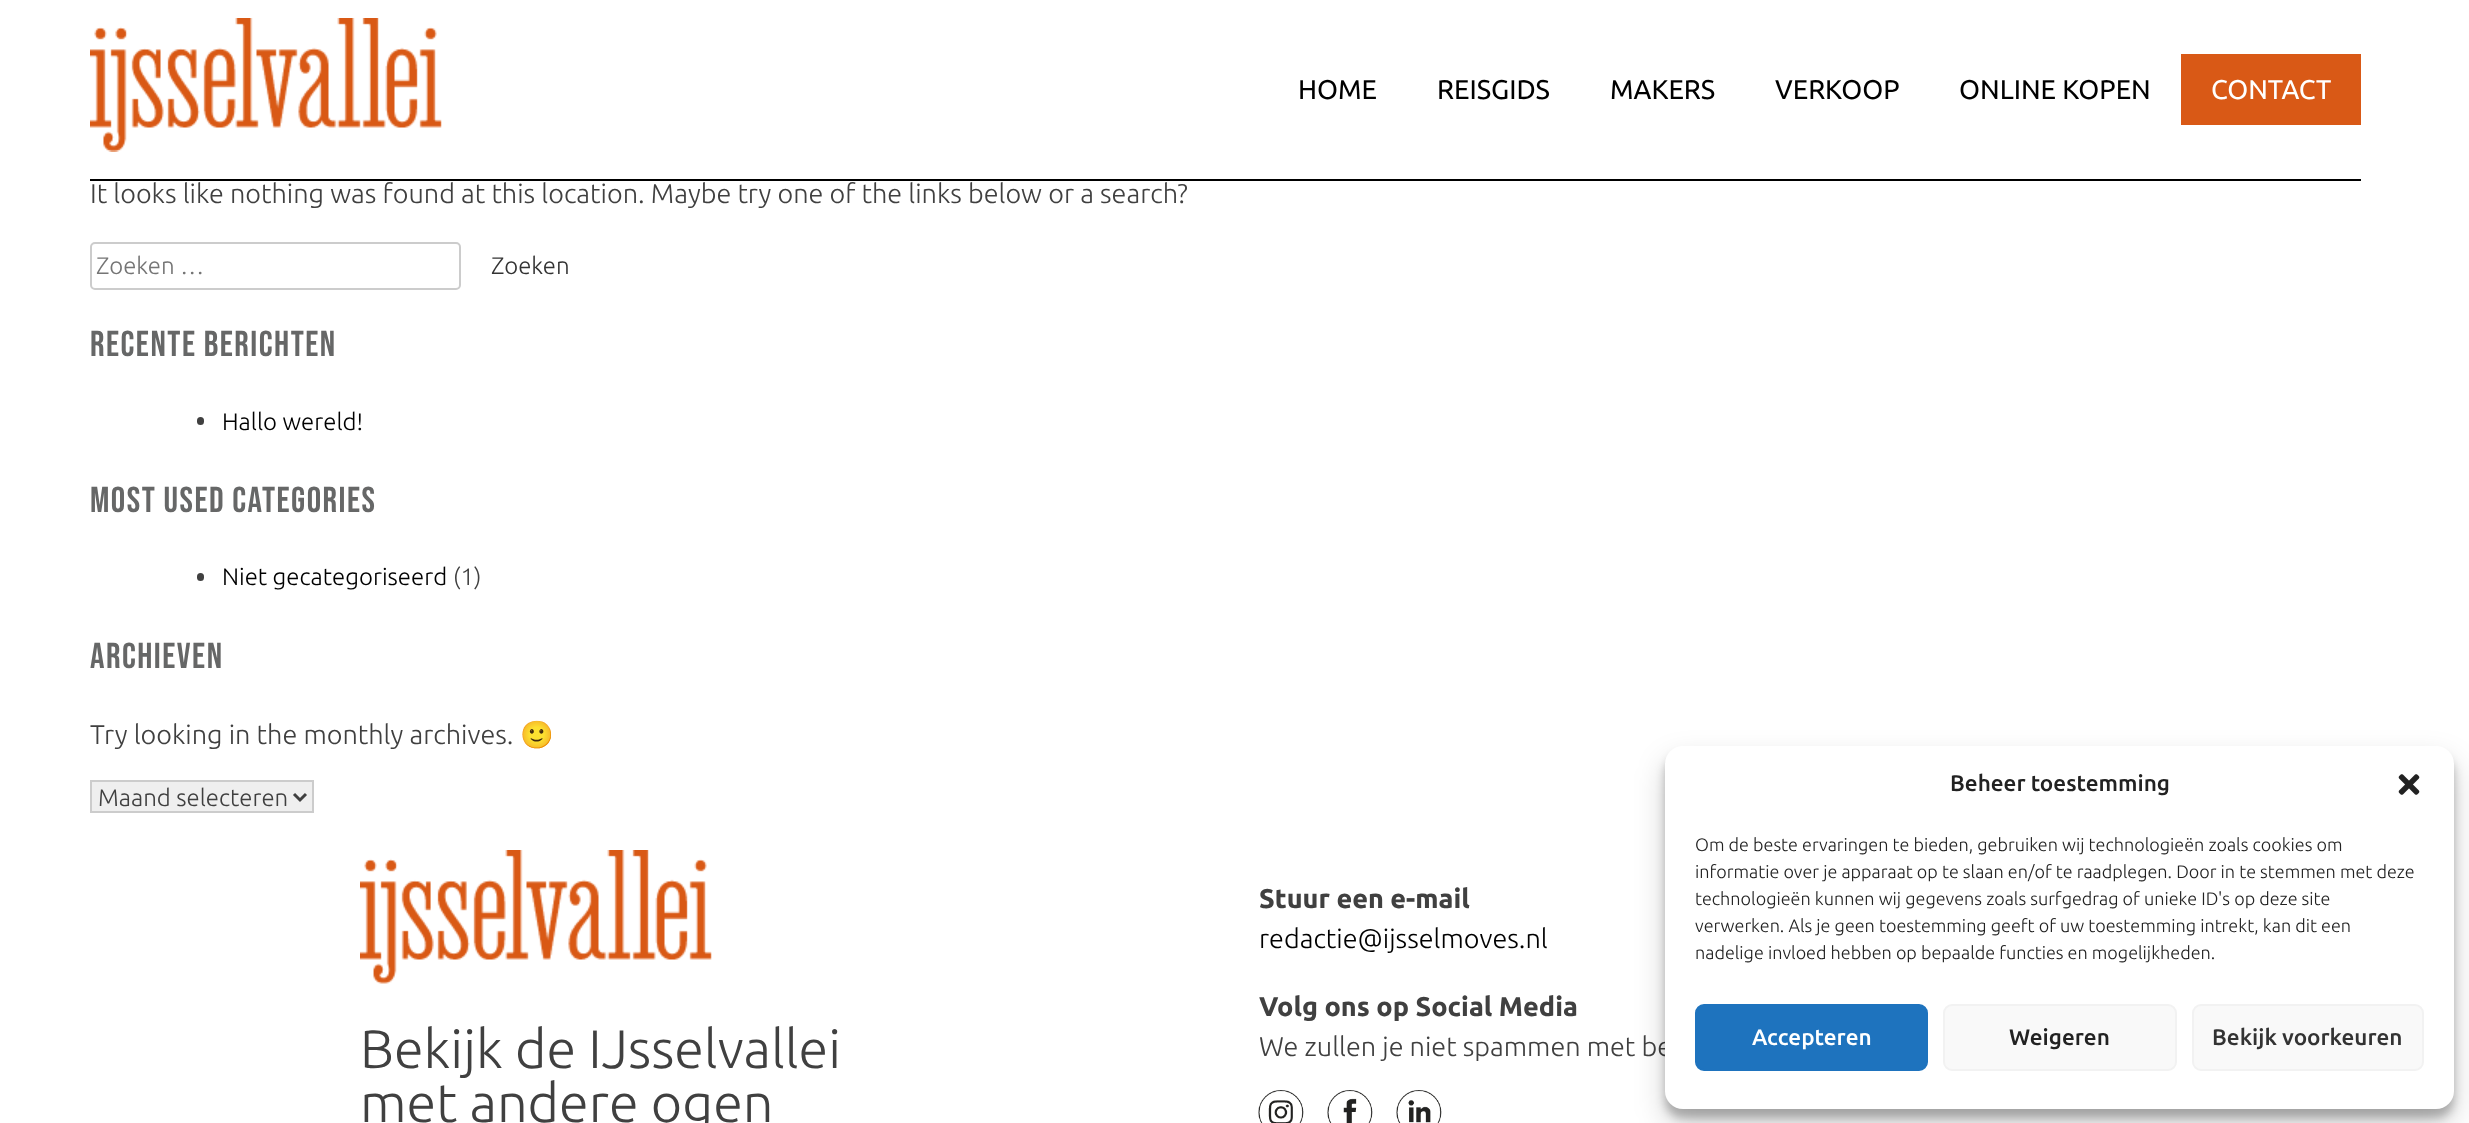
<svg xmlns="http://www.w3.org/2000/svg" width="2469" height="1123">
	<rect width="100%" height="100%" fill="#FFFFFF" />
	<rect x="90" y="179" width="2271" height="2" fill="#000000" />
	<image x="90" y="18" width="352" height="134" href="assets/img1.png" />
	<g font-family="Ubuntu" font-size="27" fill="#000000">
		<text x="1298" y="99">HOME</text>
		<text x="1437" y="99">REISGIDS</text>
		<text x="1610" y="99">MAKERS</text>
		<text x="1775" y="99">VERKOOP</text>
		<text x="1959" y="99">ONLINE KOPEN</text>
	</g>
	<rect x="2181" y="54" width="180" height="71" fill="#D95916" />
	<text x="2211" y="99" font-family="Ubuntu" font-size="27" fill="#FFFFFF">CONTACT</text>
	<text x="90" y="203" font-family="Ubuntu" font-size="27" font-weight="300" fill="#404040">It looks like nothing was found at this location. Maybe try one of the links below or a search?</text>
	<rect x="91" y="243" width="369" height="46" rx="4" fill="none" stroke="#CCCCCC" stroke-width="2" />
	<text x="96" y="274" font-family="Ubuntu" font-size="24" font-weight="300" fill="#757575">Zoeken …</text>
	<text x="491" y="274" font-family="Ubuntu" font-size="24" font-weight="300" fill="#333333">Zoeken</text>
	<text x="90" y="356" font-family="Bebas Neue" font-size="36" letter-spacing="1.5" fill="#666767">RECENTE BERICHTEN</text>
	<rect x="197" y="417" width="7" height="8" rx="3.5" fill="#404040" />
	<text x="222" y="430" font-family="Ubuntu" font-size="24" font-weight="300" fill="#000000">Hallo wereld!</text>
	<text x="90" y="512" font-family="Bebas Neue" font-size="36" letter-spacing="1.5" fill="#666767">MOST USED CATEGORIES</text>
	<rect x="197" y="573" width="7" height="8" rx="3.5" fill="#404040" />
	<text x="222" y="585" font-family="Ubuntu" font-size="24" font-weight="300" fill="#000000">Niet gecategoriseerd</text>
	<text x="453" y="585" font-family="Ubuntu" font-size="24" font-weight="300" fill="#404040">(1)</text>
	<text x="90" y="668" font-family="Bebas Neue" font-size="36" letter-spacing="1.5" fill="#666767">ARCHIEVEN</text>
	<text x="90" y="744" font-family="Ubuntu" font-size="27" font-weight="300" fill="#404040">Try looking in the monthly archives.</text>
	<text x="520" y="744" font-family="Noto Color Emoji" font-size="27" fill="#404040">🙂</text>
	<rect x="91" y="781" width="222" height="31" fill="#EFEFEF" stroke="#CCCCCC" stroke-width="2" />
	<path d="M294 794L300 800L306 794" fill="none" stroke="#404040" stroke-width="3" />
	<text x="98" y="806" font-family="Ubuntu" font-size="24" font-weight="300" fill="#404040">Maand selecteren</text>
	<text x="1259" y="908" font-family="Ubuntu" font-size="27" font-weight="700" fill="#404040">Stuur een e-mail</text>
	<text x="1259" y="948" font-family="Ubuntu" font-size="27" font-weight="300" fill="#000000">redactie@ijsselmoves.nl</text>
	<text x="1259" y="1016" font-family="Ubuntu" font-size="27" font-weight="700" fill="#404040">Volg ons op Social Media</text>
	<text x="1259" y="1056" font-family="Ubuntu" font-size="27" font-weight="300" fill="#404040">We zullen je niet spammen met be</text>
	<image x="1258" y="1090" width="46" height="33" href="assets/img2.png" />
	<image x="1327" y="1090" width="46" height="33" href="assets/img3.png" />
	<image x="1396" y="1090" width="46" height="33" href="assets/img4.png" />
	<image x="360" y="850" width="352" height="134" href="assets/img5.png" />
	<g font-family="Ubuntu" font-size="54" font-weight="300" fill="#404040">
		<text x="360" y="1068">Bekijk de IJsselvallei</text>
		<text x="360" y="1122">met andere ogen</text>
	</g>
	<rect x="1665" y="755" width="789" height="363" rx="18" fill="#000000" fill-opacity="0.23" filter="blur(4.5px)" />
	<rect x="1665" y="761" width="789" height="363" rx="18" fill="#000000" fill-opacity="0.19" filter="blur(15px)" />
	<rect x="1665" y="746" width="789" height="363" rx="18" fill="#FFFFFF" />
	<text x="1950" y="791" font-family="Ubuntu" font-size="22.5" font-weight="500" fill="#222222">Beheer toestemming</text>
	<image x="2398" y="774" width="22" height="21" href="assets/img6.png" />
	<g font-family="Ubuntu" font-size="18" font-weight="300" fill="#222222">
		<text x="1695" y="851">Om de beste ervaringen te bieden, gebruiken wij technologieën zoals cookies om</text>
		<text x="1695" y="878">informatie over je apparaat op te slaan en/of te raadplegen. Door in te stemmen met deze</text>
		<text x="1695" y="905">technologieën kunnen wij gegevens zoals surfgedrag of unieke ID's op deze site</text>
		<text x="1695" y="932">verwerken. Als je geen toestemming geeft of uw toestemming intrekt, kan dit een</text>
		<text x="1695" y="959">nadelige invloed hebben op bepaalde functies en mogelijkheden.</text>
	</g>
	<rect x="1696" y="1005" width="231" height="65" rx="8" fill="#1E73BE" stroke="#1E73BE" stroke-width="2" />
	<text x="1752" y="1045" font-family="Ubuntu" font-size="22.5" font-weight="500" fill="#FFFFFF">Accepteren</text>
	<rect x="1944" y="1005" width="232" height="65" rx="8" fill="#F9F9F9" stroke="#F2F2F2" stroke-width="2" />
	<text x="2009" y="1045" font-family="Ubuntu" font-size="22.5" font-weight="500" fill="#222222">Weigeren</text>
	<rect x="2193" y="1005" width="230" height="65" rx="8" fill="#F9F9F9" stroke="#F2F2F2" stroke-width="2" />
	<text x="2212" y="1045" font-family="Ubuntu" font-size="22.5" font-weight="500" fill="#333333">Bekijk voorkeuren</text>
</svg>
